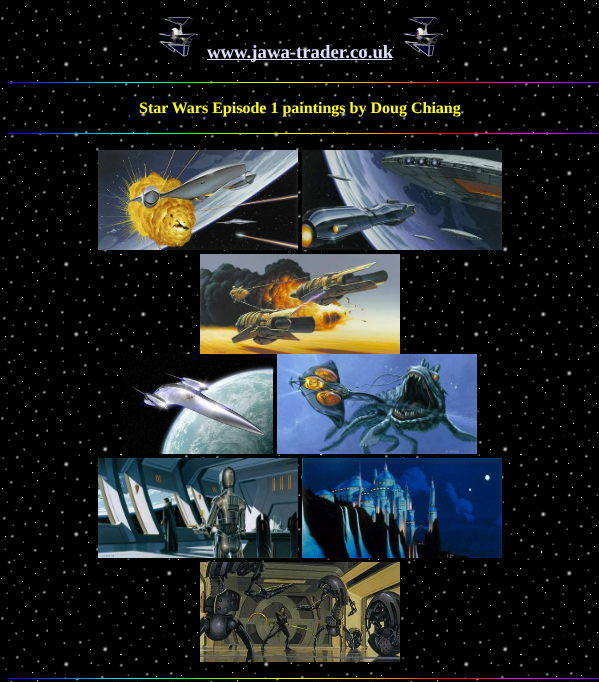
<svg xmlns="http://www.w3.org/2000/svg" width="599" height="682">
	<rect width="100%" height="100%" fill="#FFFFFF" />
	<image x="0" y="0" width="599" height="682" href="assets/img1.png" />
	<image x="152" y="8" width="50" height="50" href="assets/img2.png" />
	<rect x="207" y="59" width="185" height="1" fill="#E0E0FF" />
	<text x="207" y="58" font-family="Liberation Serif" font-size="18.75" font-weight="700" fill="#E0E0FF">www.jawa-trader.co.uk</text>
	<image x="397" y="8" width="50" height="50" href="assets/img2.png" />
	<image x="8" y="82" width="591" height="1" href="assets/img3.png" />
	<text x="139" y="113" font-family="Liberation Serif" font-size="16" font-weight="700" fill="#FFFF00">Star Wars Episode 1 paintings by Doug Chiang</text>
	<image x="8" y="133" width="591" height="1" href="assets/img3.png" />
	<image x="98" y="150" width="200" height="100" href="assets/img4.png" />
	<image x="302" y="150" width="200" height="100" href="assets/img5.png" />
	<image x="200" y="254" width="200" height="100" href="assets/img6.png" />
	<image x="123" y="354" width="150" height="100" href="assets/img7.png" />
	<image x="277" y="354" width="200" height="100" href="assets/img8.png" />
	<image x="98" y="458" width="200" height="100" href="assets/img9.png" />
	<image x="302" y="458" width="200" height="100" href="assets/img10.png" />
	<image x="200" y="562" width="200" height="100" href="assets/img11.png" />
	<image x="8" y="678" width="591" height="1" href="assets/img3.png" />
</svg>
